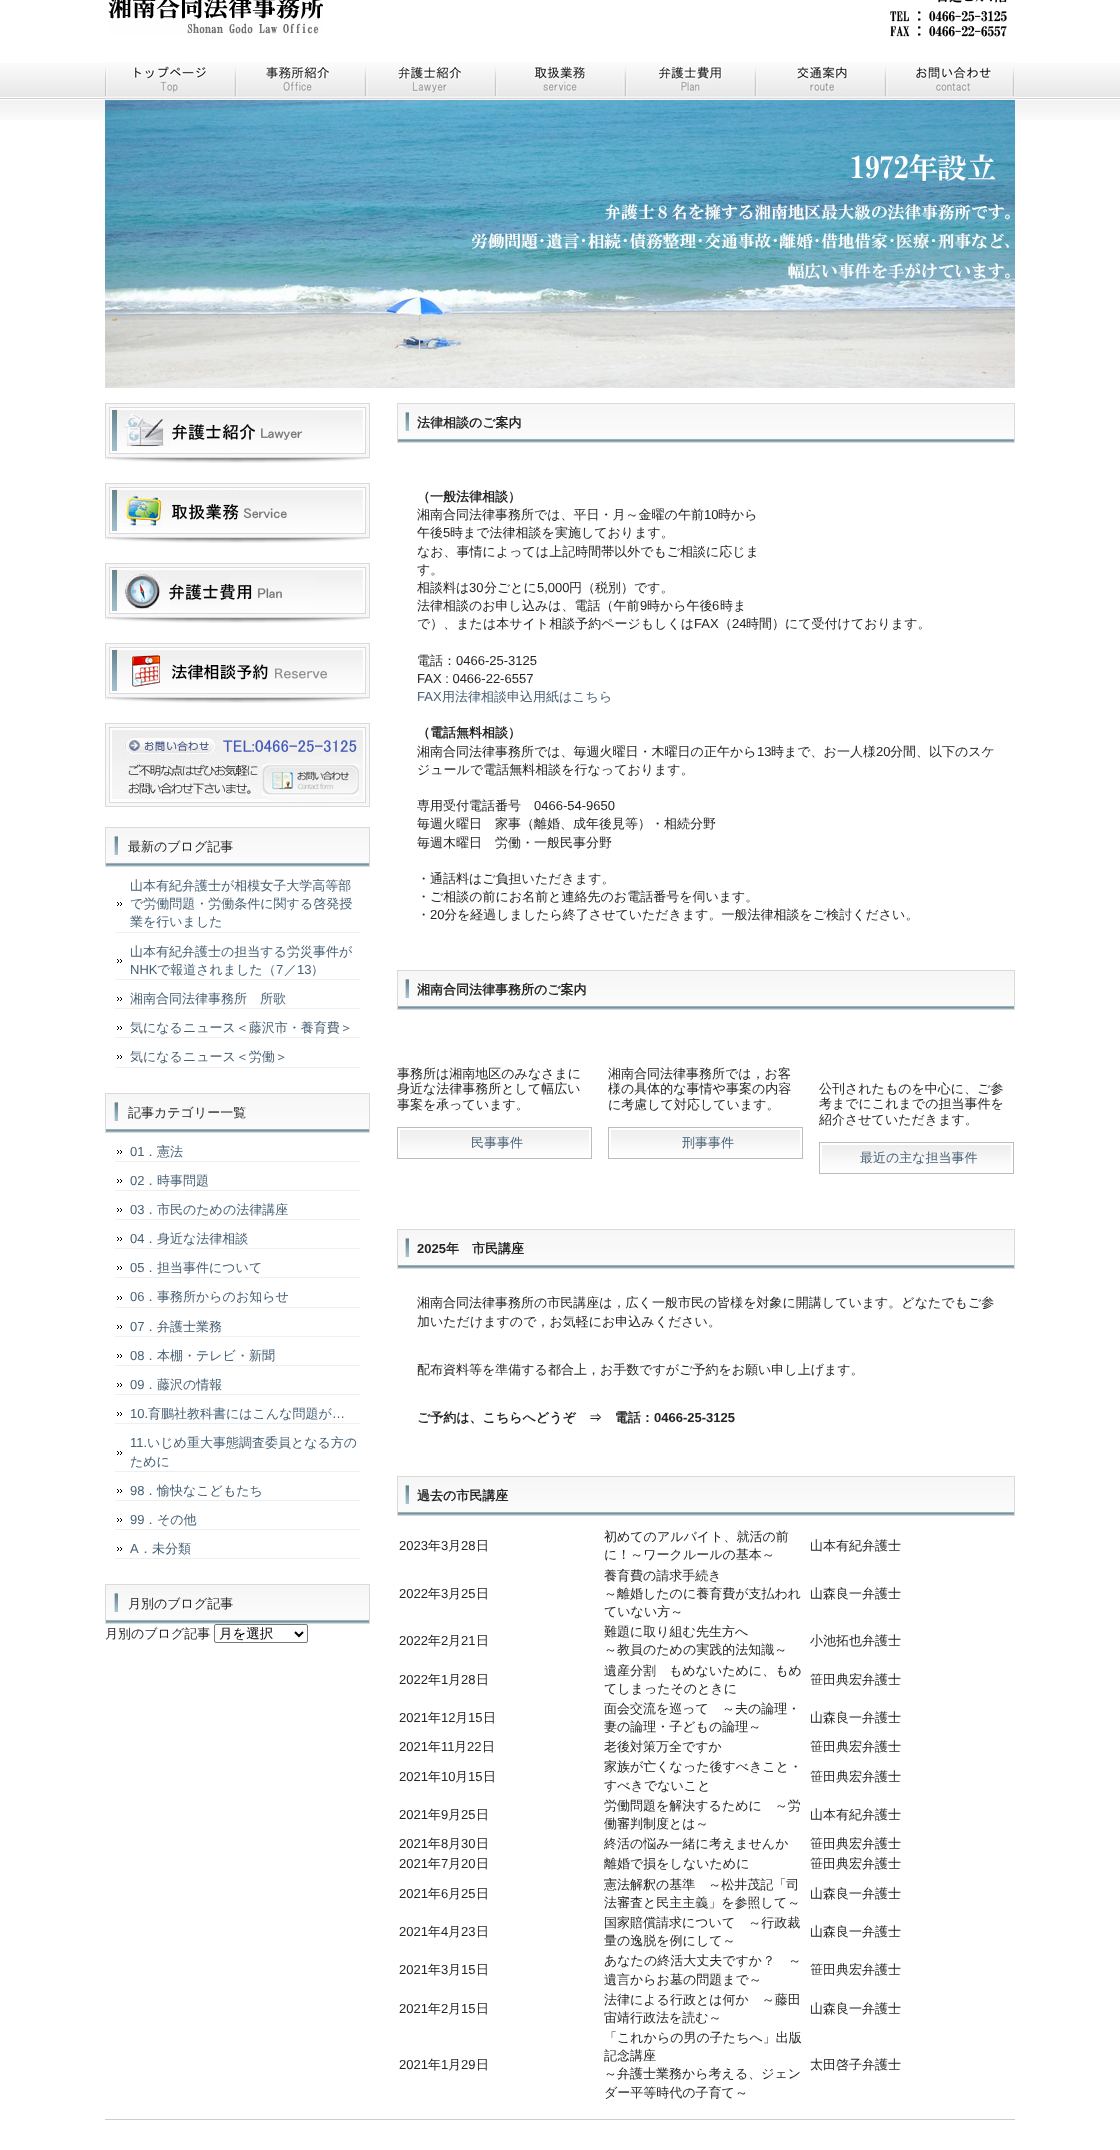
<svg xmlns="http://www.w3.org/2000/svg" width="1120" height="2150">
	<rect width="100%" height="100%" fill="#FFFFFF" />
	<image x="0" y="63" width="1120" height="57" href="assets/img1.png" />
	<image x="890" y="0" width="117" height="37" href="assets/img2.png" />
	<image x="108" y="0" width="215" height="34" href="assets/img3.png" />
	<image x="105" y="62" width="909" height="23" href="assets/img4.png" />
	<image x="105" y="85" width="130" height="15" href="assets/img5.png" />
	<image x="235" y="85" width="130" height="15" href="assets/img6.png" />
	<image x="365" y="85" width="130" height="15" href="assets/img7.png" />
	<image x="495" y="85" width="130" height="15" href="assets/img8.png" />
	<image x="625" y="85" width="130" height="15" href="assets/img9.png" />
	<image x="755" y="85" width="130" height="15" href="assets/img10.png" />
	<image x="885" y="85" width="130" height="15" href="assets/img11.png" />
	<image x="105" y="100" width="910" height="288" href="assets/img12.png" />
	<image x="105" y="403" width="265" height="60" href="assets/img13.png" />
	<image x="105" y="483" width="265" height="60" href="assets/img14.png" />
	<image x="105" y="563" width="265" height="60" href="assets/img15.png" />
	<image x="105" y="643" width="265" height="60" href="assets/img16.png" />
	<image x="105" y="723" width="265" height="84" href="assets/img17.png" />
	<image x="105" y="827" width="265" height="40" href="assets/img18.png" />
	<text x="128" y="851" font-family="WenQuanYi Zen Hei" font-size="13" font-weight="500" fill="#252525">最新のブログ記事</text>
	<rect x="115" y="932" width="245" height="1" fill="#EFEFEF" />
	<image x="117" y="902" width="5" height="4" href="assets/img19.png" />
	<g font-family="WenQuanYi Zen Hei" font-size="13" font-weight="500" fill="#486175">
		<text x="130" y="890">山本有紀弁護士が相模女子大学高等部</text>
		<text x="130" y="908">で労働問題・労働条件に関する啓発授</text>
		<text x="130" y="926">業を行いました</text>
	</g>
	<rect x="115" y="979" width="245" height="1" fill="#EFEFEF" />
	<image x="117" y="959" width="5" height="4" href="assets/img19.png" />
	<text x="130" y="956" font-family="WenQuanYi Zen Hei" font-size="13" font-weight="500" fill="#486175">山本有紀弁護士の担当する労災事件が</text>
	<text x="130" y="974" font-family="Liberation Sans" font-size="13" fill="#486175">NHK</text>
	<text x="157" y="974" font-family="WenQuanYi Zen Hei" font-size="13" font-weight="500" fill="#486175">で報道されました（</text>
	<text x="276" y="974" font-family="Liberation Sans" font-size="13" fill="#486175">7</text>
	<text x="284" y="974" font-family="WenQuanYi Zen Hei" font-size="13" font-weight="500" fill="#486175">／</text>
	<text x="297" y="974" font-family="Liberation Sans" font-size="13" fill="#486175">13</text>
	<text x="311" y="974" font-family="WenQuanYi Zen Hei" font-size="13" font-weight="500" fill="#486175">）</text>
	<rect x="115" y="1008" width="245" height="1" fill="#EFEFEF" />
	<image x="117" y="997" width="5" height="4" href="assets/img19.png" />
	<text x="130" y="1003" font-family="WenQuanYi Zen Hei" font-size="13" font-weight="500" fill="#486175">湘南合同法律事務所　所歌</text>
	<rect x="115" y="1037" width="245" height="1" fill="#EFEFEF" />
	<image x="117" y="1026" width="5" height="4" href="assets/img19.png" />
	<text x="130" y="1032" font-family="WenQuanYi Zen Hei" font-size="13" font-weight="500" fill="#486175">気になるニュース＜藤沢市・養育費＞</text>
	<rect x="115" y="1067" width="245" height="1" fill="#EFEFEF" />
	<image x="117" y="1055" width="5" height="4" href="assets/img19.png" />
	<text x="130" y="1061" font-family="WenQuanYi Zen Hei" font-size="13" font-weight="500" fill="#486175">気になるニュース＜労働＞</text>
	<image x="105" y="1093" width="265" height="40" href="assets/img18.png" />
	<text x="128" y="1117" font-family="WenQuanYi Zen Hei" font-size="13" font-weight="500" fill="#252525">記事カテゴリー一覧</text>
	<rect x="115" y="1161" width="245" height="1" fill="#EFEFEF" />
	<image x="117" y="1150" width="5" height="4" href="assets/img19.png" />
	<text x="130" y="1156" font-family="Liberation Sans" font-size="13" fill="#486175">01</text>
	<text x="144" y="1156" font-family="WenQuanYi Zen Hei" font-size="13" font-weight="500" fill="#486175">．憲法</text>
	<rect x="115" y="1190" width="245" height="1" fill="#EFEFEF" />
	<image x="117" y="1179" width="5" height="4" href="assets/img19.png" />
	<text x="130" y="1185" font-family="Liberation Sans" font-size="13" fill="#486175">02</text>
	<text x="144" y="1185" font-family="WenQuanYi Zen Hei" font-size="13" font-weight="500" fill="#486175">．時事問題</text>
	<rect x="115" y="1219" width="245" height="1" fill="#EFEFEF" />
	<image x="117" y="1208" width="5" height="4" href="assets/img19.png" />
	<text x="130" y="1214" font-family="Liberation Sans" font-size="13" fill="#486175">03</text>
	<text x="144" y="1214" font-family="WenQuanYi Zen Hei" font-size="13" font-weight="500" fill="#486175">．市民のための法律講座</text>
	<rect x="115" y="1248" width="245" height="1" fill="#EFEFEF" />
	<image x="117" y="1237" width="5" height="4" href="assets/img19.png" />
	<text x="130" y="1243" font-family="Liberation Sans" font-size="13" fill="#486175">04</text>
	<text x="144" y="1243" font-family="WenQuanYi Zen Hei" font-size="13" font-weight="500" fill="#486175">．身近な法律相談</text>
	<rect x="115" y="1277" width="245" height="1" fill="#EFEFEF" />
	<image x="117" y="1266" width="5" height="4" href="assets/img19.png" />
	<text x="130" y="1272" font-family="Liberation Sans" font-size="13" fill="#486175">05</text>
	<text x="144" y="1272" font-family="WenQuanYi Zen Hei" font-size="13" font-weight="500" fill="#486175">．担当事件について</text>
	<rect x="115" y="1307" width="245" height="1" fill="#EFEFEF" />
	<image x="117" y="1296" width="5" height="4" href="assets/img19.png" />
	<text x="130" y="1301" font-family="Liberation Sans" font-size="13" fill="#486175">06</text>
	<text x="144" y="1301" font-family="WenQuanYi Zen Hei" font-size="13" font-weight="500" fill="#486175">．事務所からのお知らせ</text>
	<rect x="115" y="1336" width="245" height="1" fill="#EFEFEF" />
	<image x="117" y="1325" width="5" height="4" href="assets/img19.png" />
	<text x="130" y="1331" font-family="Liberation Sans" font-size="13" fill="#486175">07</text>
	<text x="144" y="1331" font-family="WenQuanYi Zen Hei" font-size="13" font-weight="500" fill="#486175">．弁護士業務</text>
	<rect x="115" y="1365" width="245" height="1" fill="#EFEFEF" />
	<image x="117" y="1354" width="5" height="4" href="assets/img19.png" />
	<text x="130" y="1360" font-family="Liberation Sans" font-size="13" fill="#486175">08</text>
	<text x="144" y="1360" font-family="WenQuanYi Zen Hei" font-size="13" font-weight="500" fill="#486175">．本棚・テレビ・新聞</text>
	<rect x="115" y="1394" width="245" height="1" fill="#EFEFEF" />
	<image x="117" y="1383" width="5" height="4" href="assets/img19.png" />
	<text x="130" y="1389" font-family="Liberation Sans" font-size="13" fill="#486175">09</text>
	<text x="144" y="1389" font-family="WenQuanYi Zen Hei" font-size="13" font-weight="500" fill="#486175">．藤沢の情報</text>
	<rect x="115" y="1423" width="245" height="1" fill="#EFEFEF" />
	<image x="117" y="1412" width="5" height="4" href="assets/img19.png" />
	<text x="130" y="1418" font-family="Liberation Sans" font-size="13" fill="#486175">10.</text>
	<text x="148" y="1418" font-family="WenQuanYi Zen Hei" font-size="13" font-weight="500" fill="#486175">育鵬社教科書にはこんな問題が</text>
	<text x="332" y="1418" font-family="Liberation Sans" font-size="13" fill="#486175">…</text>
	<rect x="115" y="1471" width="245" height="1" fill="#EFEFEF" />
	<image x="117" y="1451" width="5" height="4" href="assets/img19.png" />
	<text x="130" y="1447" font-family="Liberation Sans" font-size="13" fill="#486175">11.</text>
	<g font-family="WenQuanYi Zen Hei" font-size="13" font-weight="500" fill="#486175">
		<text x="147" y="1447">いじめ重大事態調査委員となる方の</text>
		<text x="130" y="1466">ために</text>
	</g>
	<rect x="115" y="1500" width="245" height="1" fill="#EFEFEF" />
	<image x="117" y="1489" width="5" height="4" href="assets/img19.png" />
	<text x="130" y="1495" font-family="Liberation Sans" font-size="13" fill="#486175">98</text>
	<text x="144" y="1495" font-family="WenQuanYi Zen Hei" font-size="13" font-weight="500" fill="#486175">．愉快なこどもたち</text>
	<rect x="115" y="1529" width="245" height="1" fill="#EFEFEF" />
	<image x="117" y="1518" width="5" height="4" href="assets/img19.png" />
	<text x="130" y="1524" font-family="Liberation Sans" font-size="13" fill="#486175">99</text>
	<text x="144" y="1524" font-family="WenQuanYi Zen Hei" font-size="13" font-weight="500" fill="#486175">．その他</text>
	<rect x="115" y="1558" width="245" height="1" fill="#EFEFEF" />
	<image x="117" y="1547" width="5" height="4" href="assets/img19.png" />
	<text x="130" y="1553" font-family="Liberation Sans" font-size="13" fill="#486175">A</text>
	<text x="139" y="1553" font-family="WenQuanYi Zen Hei" font-size="13" font-weight="500" fill="#486175">．未分類</text>
	<image x="105" y="1584" width="265" height="40" href="assets/img18.png" />
	<g font-family="WenQuanYi Zen Hei" font-size="13" font-weight="500" fill="#252525">
		<text x="128" y="1608">月別のブログ記事</text>
		<text x="105" y="1638">月別のブログ記事</text>
	</g>
	<rect x="214.5" y="1624.5" width="93" height="18" rx="1.5" fill="none" stroke="#767676" />
	<path d="M295 1632L299 1636L303 1632" fill="none" stroke="#000000" stroke-width="2" />
	<text x="219" y="1638" font-family="WenQuanYi Zen Hei" font-size="13.5" font-weight="500" fill="#000000">月を選択</text>
	<image x="397" y="403" width="618" height="40" href="assets/img20.png" />
	<g font-family="WenQuanYi Zen Hei" font-size="13" font-weight="700" fill="#252525">
		<text x="417" y="427">法律相談のご案内</text>
		<text x="417" y="501">（一般法律相談）</text>
	</g>
	<text x="417" y="519" font-family="WenQuanYi Zen Hei" font-size="13" font-weight="500" fill="#252525">湘南合同法律事務所では、平日・月～金曜の午前</text>
	<text x="704" y="519" font-family="Liberation Sans" font-size="13" fill="#252525">10</text>
	<g font-family="WenQuanYi Zen Hei" font-size="13" font-weight="500" fill="#252525">
		<text x="718" y="519">時から</text>
		<text x="417" y="537">午後</text>
	</g>
	<text x="443" y="537" font-family="Liberation Sans" font-size="13" fill="#252525">5</text>
	<g font-family="WenQuanYi Zen Hei" font-size="13" font-weight="500" fill="#252525">
		<text x="450" y="537">時まで法律相談を実施しております。</text>
		<text x="417" y="556">なお、事情によっては上記時間帯以外でもご相談に応じま</text>
		<text x="417" y="574">す。</text>
		<text x="417" y="592">相談料は</text>
	</g>
	<text x="469" y="592" font-family="Liberation Sans" font-size="13" fill="#252525">30</text>
	<text x="484" y="592" font-family="WenQuanYi Zen Hei" font-size="13" font-weight="500" fill="#252525">分ごとに</text>
	<text x="537" y="592" font-family="Liberation Sans" font-size="13" fill="#252525">5,000</text>
	<g font-family="WenQuanYi Zen Hei" font-size="13" font-weight="500" fill="#252525">
		<text x="569" y="592">円（税別）です。</text>
		<text x="417" y="610">法律相談のお申し込みは、電話（午前</text>
	</g>
	<text x="640" y="610" font-family="Liberation Sans" font-size="13" fill="#252525">9</text>
	<text x="647" y="610" font-family="WenQuanYi Zen Hei" font-size="13" font-weight="500" fill="#252525">時から午後</text>
	<text x="712" y="610" font-family="Liberation Sans" font-size="13" fill="#252525">6</text>
	<g font-family="WenQuanYi Zen Hei" font-size="13" font-weight="500" fill="#252525">
		<text x="720" y="610">時ま</text>
		<text x="417" y="628">で）、または本サイト相談予約ページもしくは</text>
	</g>
	<text x="694" y="628" font-family="Liberation Sans" font-size="13" fill="#252525">FAX</text>
	<text x="719" y="628" font-family="WenQuanYi Zen Hei" font-size="13" font-weight="500" fill="#252525">（</text>
	<text x="732" y="628" font-family="Liberation Sans" font-size="13" fill="#252525">24</text>
	<g font-family="WenQuanYi Zen Hei" font-size="13" font-weight="500" fill="#252525">
		<text x="746" y="628">時間）にて受付けております。</text>
		<text x="417" y="665">電話：</text>
	</g>
	<g font-family="Liberation Sans" font-size="13" fill="#252525">
		<text x="456" y="665">0466-25-3125</text>
		<text x="417" y="683">FAX : 0466-22-6557</text>
	</g>
	<text x="417" y="701" font-family="Liberation Sans" font-size="13" fill="#486175">FAX</text>
	<text x="442" y="701" font-family="WenQuanYi Zen Hei" font-size="13" font-weight="500" fill="#486175">用法律相談申込用紙はこちら</text>
	<text x="417" y="737" font-family="WenQuanYi Zen Hei" font-size="13" font-weight="700" fill="#252525">（電話無料相談）</text>
	<text x="417" y="756" font-family="WenQuanYi Zen Hei" font-size="13" font-weight="500" fill="#252525">湘南合同法律事務所では、毎週火曜日・木曜日の正午から</text>
	<text x="757" y="756" font-family="Liberation Sans" font-size="13" fill="#252525">13</text>
	<text x="771" y="756" font-family="WenQuanYi Zen Hei" font-size="13" font-weight="500" fill="#252525">時まで、お一人様</text>
	<text x="876" y="756" font-family="Liberation Sans" font-size="13" fill="#252525">20</text>
	<g font-family="WenQuanYi Zen Hei" font-size="13" font-weight="500" fill="#252525">
		<text x="890" y="756">分間、以下のスケ</text>
		<text x="417" y="774">ジュールで電話無料相談を行なっております。</text>
		<text x="417" y="810">専用受付電話番号</text>
	</g>
	<text x="534" y="810" font-family="Liberation Sans" font-size="13" fill="#252525">0466-54-9650</text>
	<g font-family="WenQuanYi Zen Hei" font-size="13" font-weight="500" fill="#252525">
		<text x="417" y="828">毎週火曜日　家事（離婚、成年後見等）・相続分野</text>
		<text x="417" y="847">毎週木曜日　労働・一般民事分野</text>
		<text x="417" y="883">・通話料はご負担いただきます。</text>
		<text x="417" y="901">・ご相談の前にお名前と連絡先のお電話番号を伺います。</text>
		<text x="417" y="919">・</text>
	</g>
	<text x="430" y="919" font-family="Liberation Sans" font-size="13" fill="#252525">20</text>
	<text x="444" y="919" font-family="WenQuanYi Zen Hei" font-size="13" font-weight="500" fill="#252525">分を経過しましたら終了させていただきます。一般法律相談をご検討ください。</text>
	<image x="397" y="970" width="618" height="40" href="assets/img20.png" />
	<text x="417" y="994" font-family="WenQuanYi Zen Hei" font-size="13" font-weight="700" fill="#252525">湘南合同法律事務所のご案内</text>
	<g font-family="WenQuanYi Zen Hei" font-size="13" font-weight="500" fill="#252525">
		<text x="397" y="1078">事務所は湘南地区のみなさまに</text>
		<text x="397" y="1093">身近な法律事務所として幅広い</text>
		<text x="397" y="1109">事案を承っています。</text>
	</g>
	<image x="397" y="1127" width="195" height="32" href="assets/img21.png" />
	<text x="471" y="1147" font-family="WenQuanYi Zen Hei" font-size="13" font-weight="500" fill="#486175">民事事件</text>
	<g font-family="WenQuanYi Zen Hei" font-size="13" font-weight="500" fill="#252525">
		<text x="608" y="1078">湘南合同法律事務所では，お客</text>
		<text x="608" y="1093">様の具体的な事情や事案の内容</text>
		<text x="608" y="1109">に考慮して対応しています。</text>
	</g>
	<image x="608" y="1127" width="195" height="32" href="assets/img21.png" />
	<text x="682" y="1147" font-family="WenQuanYi Zen Hei" font-size="13" font-weight="500" fill="#486175">刑事事件</text>
	<g font-family="WenQuanYi Zen Hei" font-size="13" font-weight="500" fill="#252525">
		<text x="819" y="1093">公刊されたものを中心に、ご参</text>
		<text x="819" y="1108">考までにこれまでの担当事件を</text>
		<text x="819" y="1124">紹介させていただきます。</text>
	</g>
	<image x="819" y="1142" width="195" height="32" href="assets/img21.png" />
	<text x="860" y="1162" font-family="WenQuanYi Zen Hei" font-size="13" font-weight="500" fill="#486175">最近の主な担当事件</text>
	<image x="397" y="1229" width="618" height="40" href="assets/img20.png" />
	<text x="417" y="1253" font-family="Liberation Sans" font-size="13" font-weight="700" fill="#252525">2025</text>
	<text x="446" y="1253" font-family="WenQuanYi Zen Hei" font-size="13" font-weight="700" fill="#252525">年　市民講座</text>
	<g font-family="WenQuanYi Zen Hei" font-size="13" font-weight="500" fill="#252525">
		<text x="417" y="1307">湘南合同法律事務所の市民講座は，広く一般市民の皆様を対象に開講しています。どなたでもご参</text>
		<text x="417" y="1326">加いただけますので，お気軽にお申込みください。</text>
		<text x="417" y="1374">配布資料等を準備する都合上，お手数ですがご予約をお願い申し上げます。</text>
	</g>
	<text x="417" y="1422" font-family="WenQuanYi Zen Hei" font-size="13" font-weight="700" fill="#252525">ご予約は、こちらへどうぞ　⇒　電話：</text>
	<text x="654" y="1422" font-family="Liberation Sans" font-size="13" font-weight="700" fill="#252525">0466-25-3125</text>
	<image x="397" y="1476" width="618" height="40" href="assets/img20.png" />
	<text x="417" y="1500" font-family="WenQuanYi Zen Hei" font-size="13" font-weight="700" fill="#252525">過去の市民講座</text>
	<text x="399" y="1550" font-family="Liberation Sans" font-size="13" fill="#252525">2023</text>
	<text x="428" y="1550" font-family="WenQuanYi Zen Hei" font-size="13" font-weight="500" fill="#252525">年</text>
	<text x="441" y="1550" font-family="Liberation Sans" font-size="13" fill="#252525">3</text>
	<text x="448" y="1550" font-family="WenQuanYi Zen Hei" font-size="13" font-weight="500" fill="#252525">月</text>
	<text x="461" y="1550" font-family="Liberation Sans" font-size="13" fill="#252525">28</text>
	<g font-family="WenQuanYi Zen Hei" font-size="13" font-weight="500" fill="#252525">
		<text x="476" y="1550">日</text>
		<text x="604" y="1541">初めてのアルバイト、就活の前</text>
		<text x="604" y="1559">に！～ワークルールの基本～</text>
		<text x="810" y="1550">山本有紀弁護士</text>
	</g>
	<text x="399" y="1598" font-family="Liberation Sans" font-size="13" fill="#252525">2022</text>
	<text x="428" y="1598" font-family="WenQuanYi Zen Hei" font-size="13" font-weight="500" fill="#252525">年</text>
	<text x="441" y="1598" font-family="Liberation Sans" font-size="13" fill="#252525">3</text>
	<text x="448" y="1598" font-family="WenQuanYi Zen Hei" font-size="13" font-weight="500" fill="#252525">月</text>
	<text x="461" y="1598" font-family="Liberation Sans" font-size="13" fill="#252525">25</text>
	<g font-family="WenQuanYi Zen Hei" font-size="13" font-weight="500" fill="#252525">
		<text x="476" y="1598">日</text>
		<text x="604" y="1580">養育費の請求手続き</text>
		<text x="604" y="1598">～離婚したのに養育費が支払われ</text>
		<text x="604" y="1616">ていない方～</text>
		<text x="810" y="1598">山森良一弁護士</text>
	</g>
	<text x="399" y="1645" font-family="Liberation Sans" font-size="13" fill="#252525">2022</text>
	<text x="428" y="1645" font-family="WenQuanYi Zen Hei" font-size="13" font-weight="500" fill="#252525">年</text>
	<text x="441" y="1645" font-family="Liberation Sans" font-size="13" fill="#252525">2</text>
	<text x="448" y="1645" font-family="WenQuanYi Zen Hei" font-size="13" font-weight="500" fill="#252525">月</text>
	<text x="461" y="1645" font-family="Liberation Sans" font-size="13" fill="#252525">21</text>
	<g font-family="WenQuanYi Zen Hei" font-size="13" font-weight="500" fill="#252525">
		<text x="476" y="1645">日</text>
		<text x="604" y="1636">難題に取り組む先生方へ</text>
		<text x="604" y="1654">～教員のための実践的法知識～</text>
		<text x="810" y="1645">小池拓也弁護士</text>
	</g>
	<text x="399" y="1684" font-family="Liberation Sans" font-size="13" fill="#252525">2022</text>
	<text x="428" y="1684" font-family="WenQuanYi Zen Hei" font-size="13" font-weight="500" fill="#252525">年</text>
	<text x="441" y="1684" font-family="Liberation Sans" font-size="13" fill="#252525">1</text>
	<text x="448" y="1684" font-family="WenQuanYi Zen Hei" font-size="13" font-weight="500" fill="#252525">月</text>
	<text x="461" y="1684" font-family="Liberation Sans" font-size="13" fill="#252525">28</text>
	<g font-family="WenQuanYi Zen Hei" font-size="13" font-weight="500" fill="#252525">
		<text x="476" y="1684">日</text>
		<text x="604" y="1675">遺産分割　もめないために、もめ</text>
		<text x="604" y="1693">てしまったそのときに</text>
		<text x="810" y="1684">笹田典宏弁護士</text>
	</g>
	<text x="399" y="1722" font-family="Liberation Sans" font-size="13" fill="#252525">2021</text>
	<text x="428" y="1722" font-family="WenQuanYi Zen Hei" font-size="13" font-weight="500" fill="#252525">年</text>
	<text x="441" y="1722" font-family="Liberation Sans" font-size="13" fill="#252525">12</text>
	<text x="455" y="1722" font-family="WenQuanYi Zen Hei" font-size="13" font-weight="500" fill="#252525">月</text>
	<text x="468" y="1722" font-family="Liberation Sans" font-size="13" fill="#252525">15</text>
	<g font-family="WenQuanYi Zen Hei" font-size="13" font-weight="500" fill="#252525">
		<text x="483" y="1722">日</text>
		<text x="604" y="1713">面会交流を巡って　～夫の論理・</text>
		<text x="604" y="1731">妻の論理・子どもの論理～</text>
		<text x="810" y="1722">山森良一弁護士</text>
	</g>
	<text x="399" y="1751" font-family="Liberation Sans" font-size="13" fill="#252525">2021</text>
	<text x="428" y="1751" font-family="WenQuanYi Zen Hei" font-size="13" font-weight="500" fill="#252525">年</text>
	<text x="441" y="1751" font-family="Liberation Sans" font-size="13" fill="#252525">11</text>
	<text x="454" y="1751" font-family="WenQuanYi Zen Hei" font-size="13" font-weight="500" fill="#252525">月</text>
	<text x="467" y="1751" font-family="Liberation Sans" font-size="13" fill="#252525">22</text>
	<g font-family="WenQuanYi Zen Hei" font-size="13" font-weight="500" fill="#252525">
		<text x="482" y="1751">日</text>
		<text x="604" y="1751">老後対策万全ですか</text>
		<text x="810" y="1751">笹田典宏弁護士</text>
	</g>
	<text x="399" y="1781" font-family="Liberation Sans" font-size="13" fill="#252525">2021</text>
	<text x="428" y="1781" font-family="WenQuanYi Zen Hei" font-size="13" font-weight="500" fill="#252525">年</text>
	<text x="441" y="1781" font-family="Liberation Sans" font-size="13" fill="#252525">10</text>
	<text x="455" y="1781" font-family="WenQuanYi Zen Hei" font-size="13" font-weight="500" fill="#252525">月</text>
	<text x="468" y="1781" font-family="Liberation Sans" font-size="13" fill="#252525">15</text>
	<g font-family="WenQuanYi Zen Hei" font-size="13" font-weight="500" fill="#252525">
		<text x="483" y="1781">日</text>
		<text x="604" y="1771">家族が亡くなった後すべきこと・</text>
		<text x="604" y="1790">すべきでないこと</text>
		<text x="810" y="1781">笹田典宏弁護士</text>
	</g>
	<text x="399" y="1819" font-family="Liberation Sans" font-size="13" fill="#252525">2021</text>
	<text x="428" y="1819" font-family="WenQuanYi Zen Hei" font-size="13" font-weight="500" fill="#252525">年</text>
	<text x="441" y="1819" font-family="Liberation Sans" font-size="13" fill="#252525">9</text>
	<text x="448" y="1819" font-family="WenQuanYi Zen Hei" font-size="13" font-weight="500" fill="#252525">月</text>
	<text x="461" y="1819" font-family="Liberation Sans" font-size="13" fill="#252525">25</text>
	<g font-family="WenQuanYi Zen Hei" font-size="13" font-weight="500" fill="#252525">
		<text x="476" y="1819">日</text>
		<text x="604" y="1810">労働問題を解決するために　～労</text>
		<text x="604" y="1828">働審判制度とは～</text>
		<text x="810" y="1819">山本有紀弁護士</text>
	</g>
	<text x="399" y="1848" font-family="Liberation Sans" font-size="13" fill="#252525">2021</text>
	<text x="428" y="1848" font-family="WenQuanYi Zen Hei" font-size="13" font-weight="500" fill="#252525">年</text>
	<text x="441" y="1848" font-family="Liberation Sans" font-size="13" fill="#252525">8</text>
	<text x="448" y="1848" font-family="WenQuanYi Zen Hei" font-size="13" font-weight="500" fill="#252525">月</text>
	<text x="461" y="1848" font-family="Liberation Sans" font-size="13" fill="#252525">30</text>
	<g font-family="WenQuanYi Zen Hei" font-size="13" font-weight="500" fill="#252525">
		<text x="476" y="1848">日</text>
		<text x="604" y="1848">終活の悩み一緒に考えませんか</text>
		<text x="810" y="1848">笹田典宏弁護士</text>
	</g>
	<text x="399" y="1868" font-family="Liberation Sans" font-size="13" fill="#252525">2021</text>
	<text x="428" y="1868" font-family="WenQuanYi Zen Hei" font-size="13" font-weight="500" fill="#252525">年</text>
	<text x="441" y="1868" font-family="Liberation Sans" font-size="13" fill="#252525">7</text>
	<text x="448" y="1868" font-family="WenQuanYi Zen Hei" font-size="13" font-weight="500" fill="#252525">月</text>
	<text x="461" y="1868" font-family="Liberation Sans" font-size="13" fill="#252525">20</text>
	<g font-family="WenQuanYi Zen Hei" font-size="13" font-weight="500" fill="#252525">
		<text x="476" y="1868">日</text>
		<text x="604" y="1868">離婚で損をしないために</text>
		<text x="810" y="1868">笹田典宏弁護士</text>
	</g>
	<text x="399" y="1898" font-family="Liberation Sans" font-size="13" fill="#252525">2021</text>
	<text x="428" y="1898" font-family="WenQuanYi Zen Hei" font-size="13" font-weight="500" fill="#252525">年</text>
	<text x="441" y="1898" font-family="Liberation Sans" font-size="13" fill="#252525">6</text>
	<text x="448" y="1898" font-family="WenQuanYi Zen Hei" font-size="13" font-weight="500" fill="#252525">月</text>
	<text x="461" y="1898" font-family="Liberation Sans" font-size="13" fill="#252525">25</text>
	<g font-family="WenQuanYi Zen Hei" font-size="13" font-weight="500" fill="#252525">
		<text x="476" y="1898">日</text>
		<text x="604" y="1889">憲法解釈の基準　～松井茂記「司</text>
		<text x="604" y="1907">法審査と民主主義」を参照して～</text>
		<text x="810" y="1898">山森良一弁護士</text>
	</g>
	<text x="399" y="1936" font-family="Liberation Sans" font-size="13" fill="#252525">2021</text>
	<text x="428" y="1936" font-family="WenQuanYi Zen Hei" font-size="13" font-weight="500" fill="#252525">年</text>
	<text x="441" y="1936" font-family="Liberation Sans" font-size="13" fill="#252525">4</text>
	<text x="448" y="1936" font-family="WenQuanYi Zen Hei" font-size="13" font-weight="500" fill="#252525">月</text>
	<text x="461" y="1936" font-family="Liberation Sans" font-size="13" fill="#252525">23</text>
	<g font-family="WenQuanYi Zen Hei" font-size="13" font-weight="500" fill="#252525">
		<text x="476" y="1936">日</text>
		<text x="604" y="1927">国家賠償請求について　～行政裁</text>
		<text x="604" y="1945">量の逸脱を例にして～</text>
		<text x="810" y="1936">山森良一弁護士</text>
	</g>
	<text x="399" y="1974" font-family="Liberation Sans" font-size="13" fill="#252525">2021</text>
	<text x="428" y="1974" font-family="WenQuanYi Zen Hei" font-size="13" font-weight="500" fill="#252525">年</text>
	<text x="441" y="1974" font-family="Liberation Sans" font-size="13" fill="#252525">3</text>
	<text x="448" y="1974" font-family="WenQuanYi Zen Hei" font-size="13" font-weight="500" fill="#252525">月</text>
	<text x="461" y="1974" font-family="Liberation Sans" font-size="13" fill="#252525">15</text>
	<g font-family="WenQuanYi Zen Hei" font-size="13" font-weight="500" fill="#252525">
		<text x="476" y="1974">日</text>
		<text x="604" y="1965">あなたの終活大丈夫ですか？　～</text>
		<text x="604" y="1984">遺言からお墓の問題まで～</text>
		<text x="810" y="1974">笹田典宏弁護士</text>
	</g>
	<text x="399" y="2013" font-family="Liberation Sans" font-size="13" fill="#252525">2021</text>
	<text x="428" y="2013" font-family="WenQuanYi Zen Hei" font-size="13" font-weight="500" fill="#252525">年</text>
	<text x="441" y="2013" font-family="Liberation Sans" font-size="13" fill="#252525">2</text>
	<text x="448" y="2013" font-family="WenQuanYi Zen Hei" font-size="13" font-weight="500" fill="#252525">月</text>
	<text x="461" y="2013" font-family="Liberation Sans" font-size="13" fill="#252525">15</text>
	<g font-family="WenQuanYi Zen Hei" font-size="13" font-weight="500" fill="#252525">
		<text x="476" y="2013">日</text>
		<text x="604" y="2004">法律による行政とは何か　～藤田</text>
		<text x="604" y="2022">宙靖行政法を読む～</text>
		<text x="810" y="2013">山森良一弁護士</text>
	</g>
	<text x="399" y="2069" font-family="Liberation Sans" font-size="13" fill="#252525">2021</text>
	<text x="428" y="2069" font-family="WenQuanYi Zen Hei" font-size="13" font-weight="500" fill="#252525">年</text>
	<text x="441" y="2069" font-family="Liberation Sans" font-size="13" fill="#252525">1</text>
	<text x="448" y="2069" font-family="WenQuanYi Zen Hei" font-size="13" font-weight="500" fill="#252525">月</text>
	<text x="461" y="2069" font-family="Liberation Sans" font-size="13" fill="#252525">29</text>
	<g font-family="WenQuanYi Zen Hei" font-size="13" font-weight="500" fill="#252525">
		<text x="476" y="2069">日</text>
		<text x="604" y="2042">「これからの男の子たちへ」出版</text>
		<text x="604" y="2060">記念講座</text>
		<text x="604" y="2078">～弁護士業務から考える、ジェン</text>
		<text x="604" y="2097">ダー平等時代の子育て～</text>
		<text x="810" y="2069">太田啓子弁護士</text>
	</g>
	<rect x="105" y="2119" width="910" height="1" fill="#CCCCCC" />
</svg>
